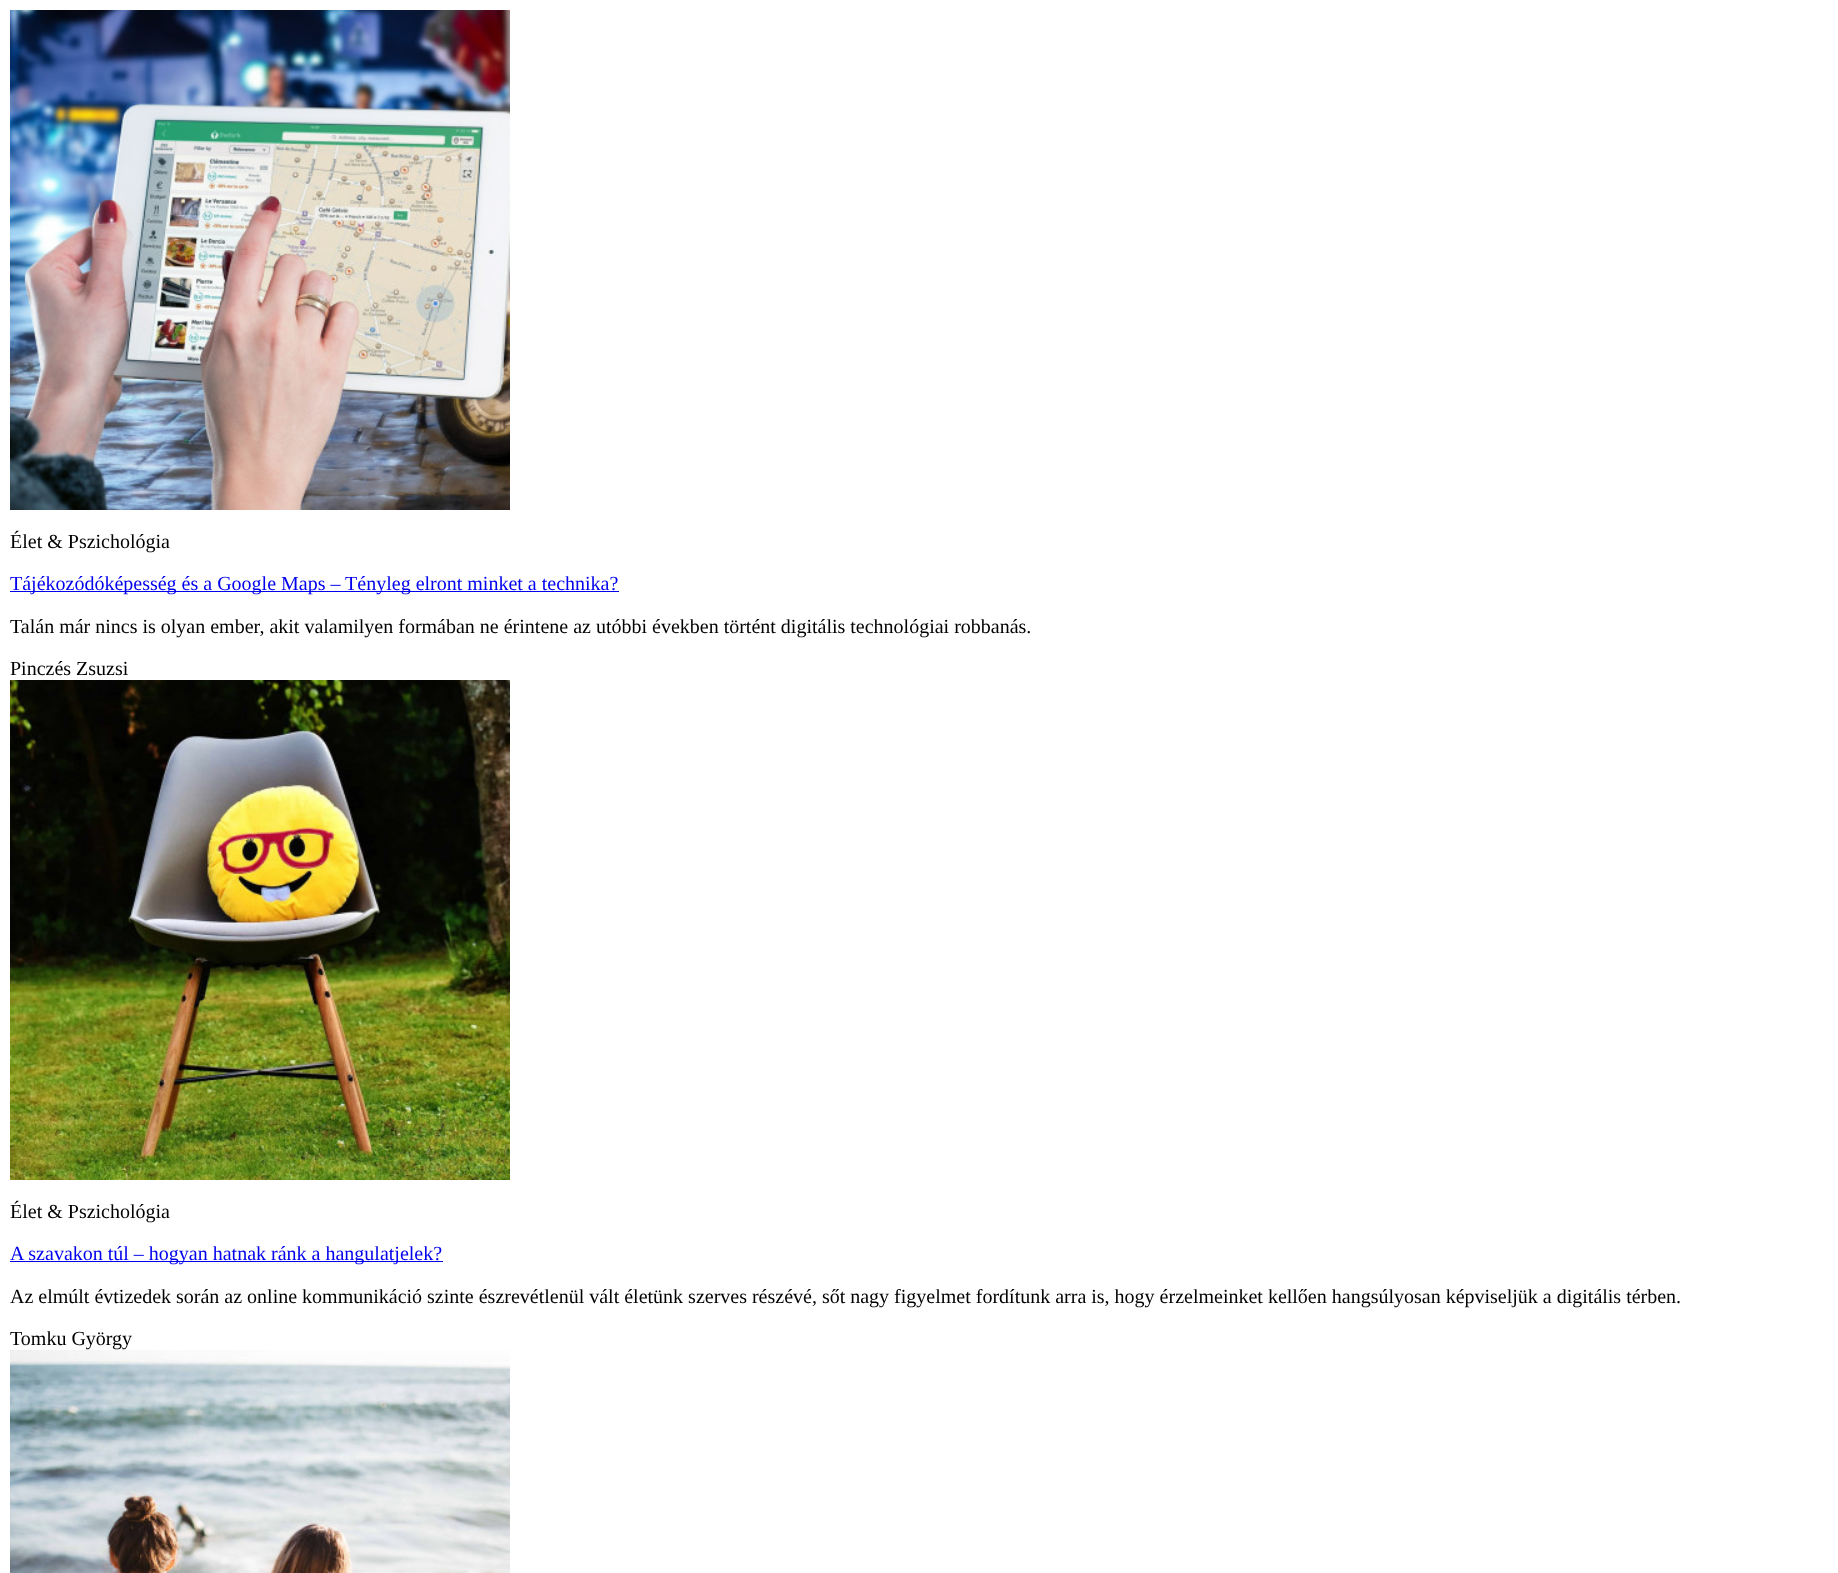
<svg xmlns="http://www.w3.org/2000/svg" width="1838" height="1573">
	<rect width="100%" height="100%" fill="#FFFFFF" />
	<image x="10" y="10" width="500" height="500" href="assets/img1.png" />
	<text x="10" y="548" font-family="Liberation Serif" font-size="20" fill="#000000">Élet &amp; Pszichológia</text>
	<rect x="10" y="591" width="609" height="1" fill="#0000EE" />
	<text x="10" y="590" font-family="Liberation Serif" font-size="20" fill="#0000EE">Tájékozódóképesség és a Google Maps – Tényleg elront minket a technika?</text>
	<g font-family="Liberation Serif" font-size="20" fill="#000000">
		<text x="10" y="633">Talán már nincs is olyan ember, akit valamilyen formában ne érintene az utóbbi években történt digitális technológiai robbanás.</text>
		<text x="10" y="675">Pinczés Zsuzsi</text>
	</g>
	<image x="10" y="680" width="500" height="500" href="assets/img2.png" />
	<text x="10" y="1218" font-family="Liberation Serif" font-size="20" fill="#000000">Élet &amp; Pszichológia</text>
	<rect x="10" y="1261" width="433" height="1" fill="#0000EE" />
	<text x="10" y="1260" font-family="Liberation Serif" font-size="20" fill="#0000EE">A szavakon túl – hogyan hatnak ránk a hangulatjelek?</text>
	<g font-family="Liberation Serif" font-size="20" fill="#000000">
		<text x="10" y="1303">Az elmúlt évtizedek során az online kommunikáció szinte észrevétlenül vált életünk szerves részévé, sőt nagy figyelmet fordítunk arra is, hogy érzelmeinket kellően hangsúlyosan képviseljük a digitális térben.</text>
		<text x="10" y="1345">Tomku György</text>
	</g>
	<image x="10" y="1350" width="500" height="223" href="assets/img3.png" />
</svg>
